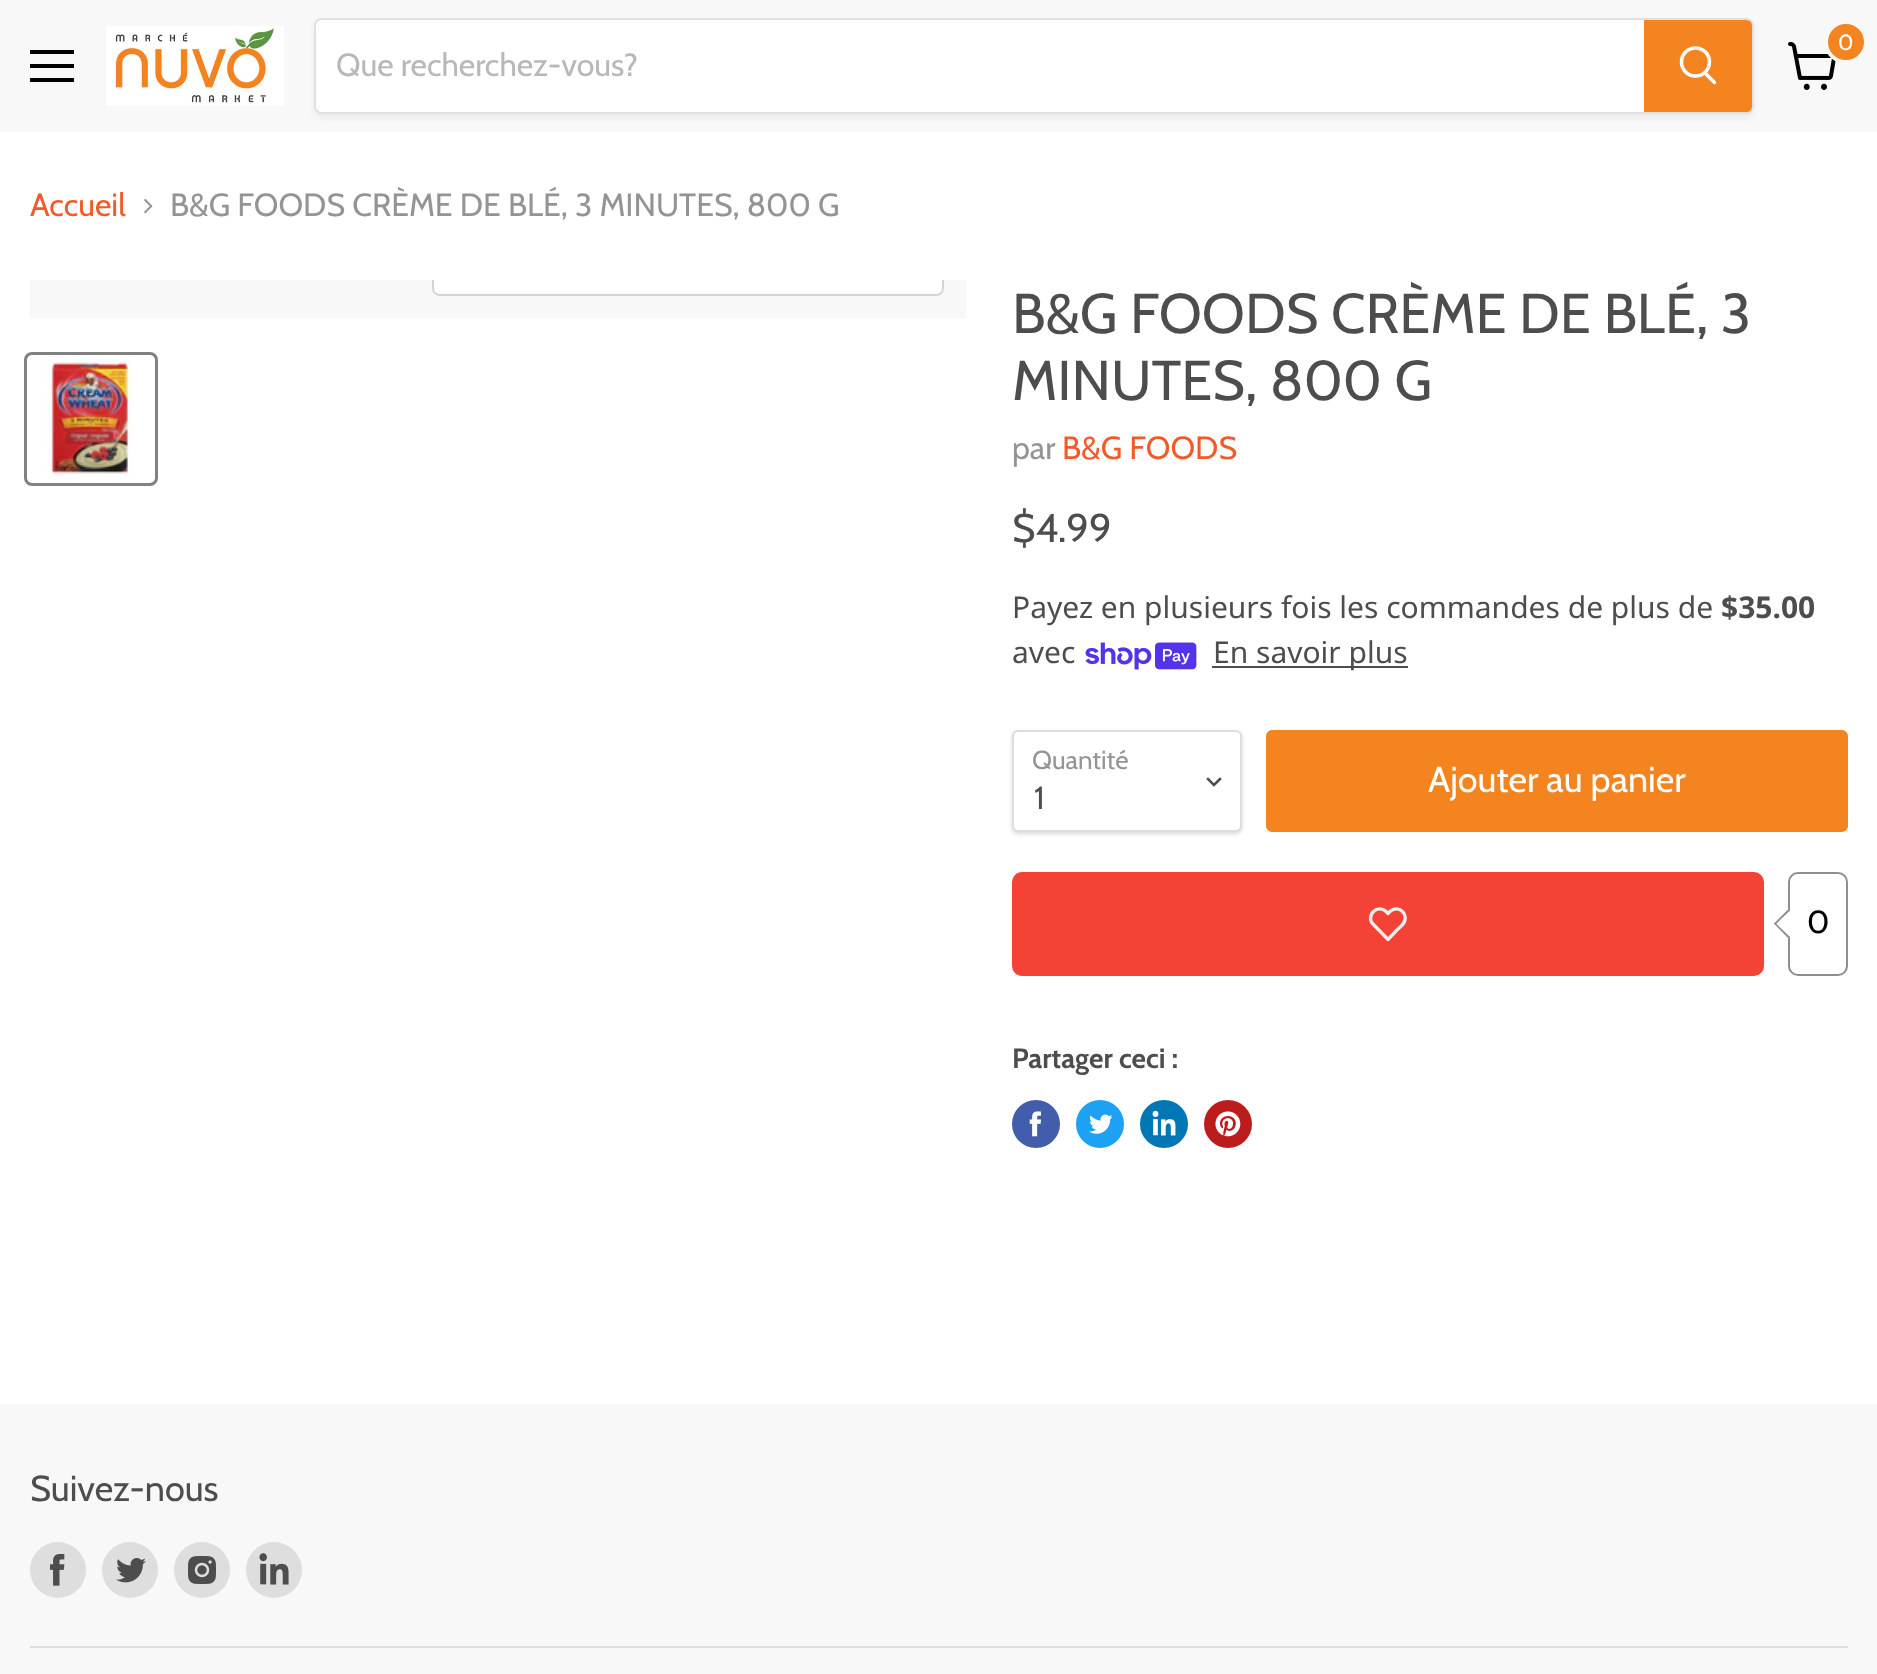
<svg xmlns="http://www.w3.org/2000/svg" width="1877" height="1674">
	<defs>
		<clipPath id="clip1"><path d="M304 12H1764V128H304ZM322 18H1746C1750.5 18 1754 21.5 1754 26V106C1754 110.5 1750.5 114 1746 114H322C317.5 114 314 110.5 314 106V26C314 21.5 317.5 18 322 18Z" clip-rule="evenodd" /></clipPath>
		<clipPath id="clip2"><rect x="30" y="280" width="936" height="38" /></clipPath>
	</defs>
	<rect width="100%" height="100%" fill="#FFFFFF" />
	<rect x="0" y="0" width="1877" height="132" fill="#F8F8F8" />
	<image x="1788" y="42" width="48" height="48" href="assets/img1.png" />
	<circle cx="1846" cy="42" r="20" fill="#F3841F" stroke="#F8F8F8" stroke-width="4" />
	<text x="1838" y="50" font-family="Cabin" font-size="22" fill="#FFFFFF">0</text>
	<rect x="30" y="50" width="44" height="4" fill="#000000" />
	<rect x="30" y="64" width="44" height="4" fill="#000000" />
	<rect x="30" y="78" width="44" height="4" fill="#000000" />
	<image x="106" y="26" width="178" height="80" href="assets/img2.png" />
	<g clip-path="url(#clip1)">
		<rect x="314" y="22" width="1440" height="96" rx="8" fill="#808080" fill-opacity="0.11" filter="blur(3px)" />
	</g>
	<rect x="315" y="19" width="1438" height="94" rx="7" fill="none" stroke="#808080" stroke-opacity="0.2" stroke-width="2" />
	<path d="M322 20H1644V112H322C318.5 112 316 109.5 316 106V26C316 22.5 318.5 20 322 20Z" fill="#FFFFFF" />
	<text x="336" y="76" font-family="Cabin" font-size="32" fill="#B8B8B8">Que recherchez-vous?</text>
	<path d="M1645 21H1746C1749 21 1751 23 1751 26V106C1751 109 1749 111 1746 111H1645Z" fill="#F3841F" stroke="#F3841F" stroke-width="2" />
	<path d="M1714.5 82.5L1705 73" fill="none" stroke="#FFFFFF" stroke-width="3.5" stroke-linecap="round" />
	<circle cx="1695.5" cy="62" r="14" fill="none" stroke="#FFFFFF" stroke-width="3.5" />
	<text x="30" y="216" font-family="Cabin" font-size="32" fill="#F15A29">Accueil</text>
	<image x="144" y="198" width="9" height="16" href="assets/img3.png" />
	<text x="170" y="216" font-family="Cabin" font-size="32" fill="#949494">B&amp;G FOODS CRÈME DE BLÉ, 3 MINUTES, 800 G</text>
	<rect x="30" y="280" width="936" height="38" fill="#F8F8F8" />
	<g clip-path="url(#clip2)">
		<rect x="433" y="237" width="510" height="58" rx="7" fill="none" stroke="#D3D3D3" stroke-width="2" />
	</g>
	<path d="M434 280H942V288C942 291.5 939.5 294 936 294H440C436.5 294 434 291.5 434 288Z" fill="#FFFFFF" fill-opacity="0.9" />
	<rect x="25.5" y="353.5" width="131" height="131" rx="6.5" fill="none" stroke="#818181" stroke-width="3" />
	<image x="46" y="358" width="87" height="117" href="assets/img4.png" />
	<g font-family="Cabin" font-size="56" fill="#4D4D4D">
		<text x="1012" y="333">B&amp;G FOODS CRÈME DE BLÉ, 3</text>
		<text x="1012" y="400">MINUTES, 800 G</text>
	</g>
	<text x="1012" y="459" font-family="Cabin" font-size="32" fill="#949494">par</text>
	<text x="1062" y="459" font-family="Cabin" font-size="32" fill="#F15A29">B&amp;G FOODS</text>
	<text x="1012" y="542" font-family="Cabin" font-size="40" fill="#4D4D4D">$4.99</text>
	<text x="1012" y="618" font-family="Noto Sans" font-size="30" fill="#4D4D4D">Payez en plusieurs fois les commandes de plus de</text>
	<text x="1721" y="618" font-family="Noto Sans" font-size="30" font-weight="700" fill="#4D4D4D">$35.00</text>
	<text x="1012" y="663" font-family="Noto Sans" font-size="30" fill="#4D4D4D">avec</text>
	<image x="1085" y="642" width="112" height="28" href="assets/img5.png" />
	<rect x="1212" y="666" width="196" height="2" fill="#4D4D4D" />
	<text x="1213" y="663" font-family="Noto Sans" font-size="30" fill="#4D4D4D">En savoir plus</text>
	<rect x="1012" y="732" width="230" height="102" rx="6" fill="#000000" fill-opacity="0.15" filter="blur(2px)" />
	<rect x="1013" y="731" width="228" height="100" rx="5" fill="#FFFFFF" stroke="#DDDDDD" stroke-width="2" />
	<text x="1032" y="769" font-family="Cabin" font-size="26" fill="#949494">Quantité</text>
	<path d="M1214 785L1220 779M1214 785L1208 779" fill="none" stroke="#4D4D4D" stroke-width="2.5" stroke-linecap="square" />
	<text x="1034" y="809" font-family="Cabin" font-size="32" fill="#4D4D4D">1</text>
	<rect x="1267" y="731" width="580" height="100" rx="5" fill="#F3841F" stroke="#F3841F" stroke-width="2" />
	<text x="1428" y="792" font-family="Cabin" font-size="36" fill="#FFFFFF">Ajouter au panier</text>
	<rect x="1013" y="873" width="750" height="102" rx="9" fill="#F44336" stroke="#F44336" stroke-width="2" />
	<path d="M1402.5 911.5C1399.5 908.5 1395 908 1391 910.5L1388 913.5L1386 911.5C1382.5 908 1377 908 1373.5 911.5C1369.5 915.5 1369.5 921 1373.5 924.5L1388 939.5L1396.5 930.5C1400.5 927 1406.5 922.5 1405 916.5C1405 914.5 1404 913 1402.5 911.5Z" fill="none" stroke="#EEEEEE" stroke-width="3.3" stroke-linecap="round" stroke-linejoin="round" />
	<rect x="1789" y="873" width="58" height="102" rx="9" fill="none" stroke="#8E8E8E" stroke-width="2" />
	<path d="M1788 909.5L1802 923.5L1788 938L1774 923.5Z" fill="#FFFFFF" />
	<path d="M1775 922.5L1789.5 936.5L1788 938L1774 923.5Z" fill="#8E8E8E" />
	<path d="M1788 909.5L1789.5 911L1775 925L1774 923.5Z" fill="#8E8E8E" />
	<text x="1807" y="933" font-family="Cabin" font-size="32" fill="#000000">0</text>
	<text x="1012" y="1068" font-family="Cabin" font-size="28" font-weight="700" fill="#4D4D4D">Partager ceci :</text>
	<circle cx="1036" cy="1124" r="24" fill="#425DAB" />
	<image x="1029" y="1111" width="12" height="26" href="assets/img6.png" />
	<circle cx="1100" cy="1124" r="24" fill="#1DA1F2" />
	<image x="1089" y="1114" width="24" height="20" href="assets/img7.png" />
	<circle cx="1164" cy="1124" r="24" fill="#0077B5" />
	<image x="1152" y="1110" width="24" height="26" href="assets/img8.png" />
	<circle cx="1228" cy="1124" r="24" fill="#BD1C1C" />
	<image x="1215" y="1111" width="26" height="26" href="assets/img9.png" />
	<rect x="0" y="1404" width="1877" height="270" fill="#F8F8F8" />
	<rect x="30" y="1646" width="1818" height="2" fill="#DEDEDE" />
	<text x="30" y="1501" font-family="Cabin" font-size="36" fill="#4D4D4D">Suivez-nous</text>
	<circle cx="58" cy="1570" r="28" fill="#DEDEDE" />
	<image x="50" y="1554" width="15" height="32" href="assets/img10.png" />
	<circle cx="130" cy="1570" r="28" fill="#DEDEDE" />
	<image x="116" y="1558" width="30" height="25" href="assets/img11.png" />
	<circle cx="202" cy="1570" r="28" fill="#DEDEDE" />
	<image x="188" y="1556" width="28" height="28" href="assets/img12.png" />
	<circle cx="274" cy="1570" r="28" fill="#DEDEDE" />
	<image x="259" y="1553" width="30" height="32" href="assets/img13.png" />
</svg>
